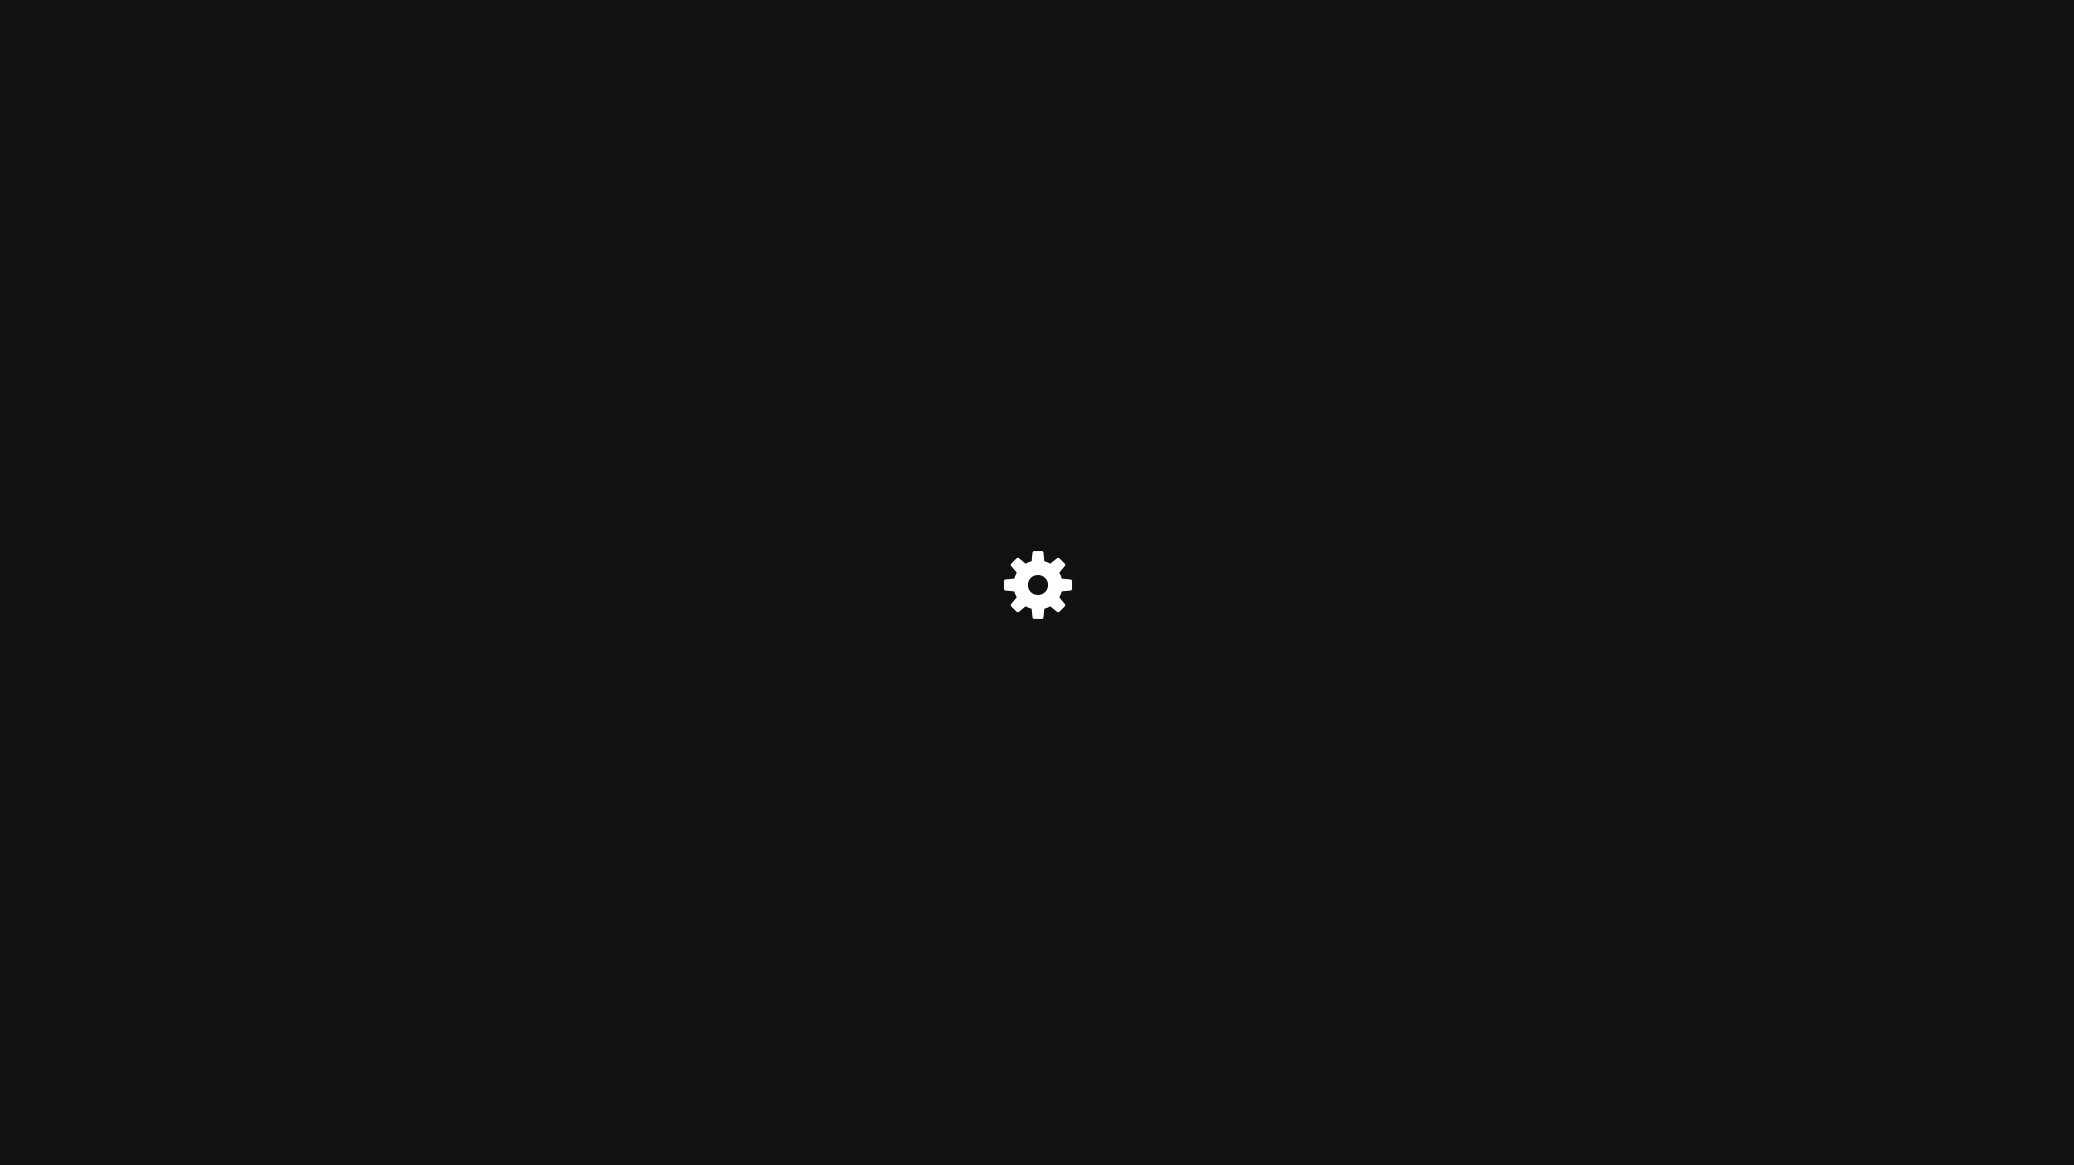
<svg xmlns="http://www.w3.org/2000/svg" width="2074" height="1165">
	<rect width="100%" height="100%" fill="#111111" />
	<image x="1003" y="551" width="70" height="68" href="assets/img1.png" />
</svg>
